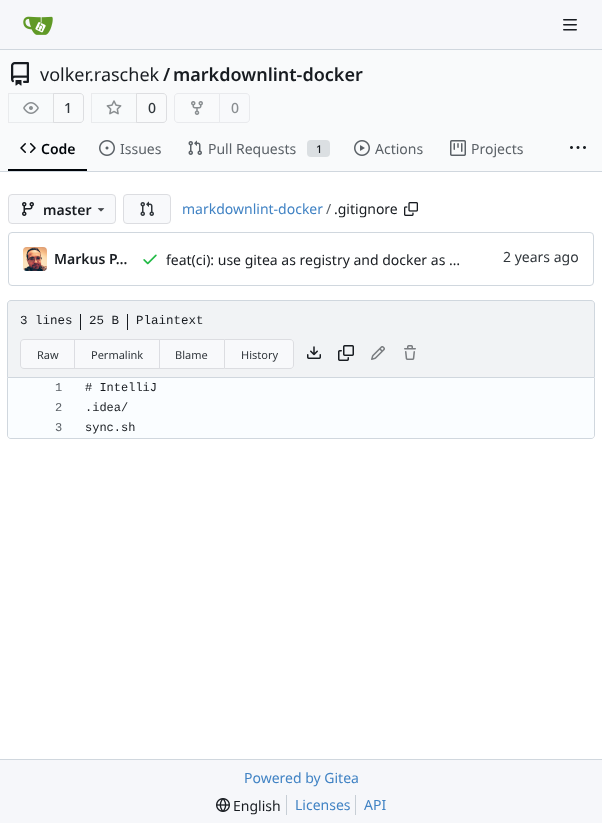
<svg xmlns="http://www.w3.org/2000/svg" width="602" height="823">
	<rect width="100%" height="100%" fill="#FFFFFF" />
	<rect x="0" y="0" width="602" height="49" fill="#F6F7FA" />
	<rect x="0" y="49" width="602" height="1" fill="#D0D7DE" />
	<image x="23" y="16" width="30" height="19" href="assets/img1.png" />
	<image x="563" y="19" width="14" height="12" href="assets/img2.png" />
	<rect x="0" y="50" width="602" height="121" fill="#F9FAFB" />
	<image x="11" y="62" width="18" height="24" href="assets/img3.png" />
	<text x="40" y="81" font-family="Noto Sans" font-size="18" fill="#181C21">volker.raschek</text>
	<g font-family="Noto Sans" font-size="18" font-weight="600" fill="#181C21">
		<text x="163" y="81">/</text>
		<text x="173" y="81">markdownlint-docker</text>
	</g>
	<path d="M53.5 93.5H80C82 93.5 83.5 95 83.5 97V119C83.5 121 82 122.5 80 122.5H53.5Z" fill="none" stroke="#DDDEE1" />
	<path d="M12 93H54V123H12C10 123 8 121 8 119V97C8 95 10 93 12 93Z" fill="#F8F9FB" fill-opacity="0.55" />
	<rect x="8.5" y="93.5" width="45" height="29" fill="none" stroke="#000017" stroke-opacity="0.06" />
	<image x="23" y="102" width="16" height="12" href="assets/img4.png" />
	<text x="64" y="113" font-family="Noto Sans" font-size="14" font-weight="500" fill="#30363B">1</text>
	<path d="M136.5 93.5H163C165 93.5 166.5 95 166.5 97V119C166.5 121 165 122.5 163 122.5H136.5Z" fill="none" stroke="#DDDEE1" />
	<path d="M95 93H137V123H95C93 123 91 121 91 119V97C91 95 93 93 95 93Z" fill="#F8F9FB" fill-opacity="0.55" />
	<rect x="91.5" y="93.5" width="45" height="29" fill="none" stroke="#000017" stroke-opacity="0.06" />
	<image x="106" y="100" width="16" height="15" href="assets/img5.png" />
	<text x="148" y="113" font-family="Noto Sans" font-size="14" font-weight="500" fill="#30363B">0</text>
	<path d="M178 93.5H219.5V122.5H178C176 122.5 174.5 121 174.5 119V97C174.5 95 176 93.5 178 93.5Z" fill="none" stroke="#E9EAED" />
	<image x="191" y="101" width="12" height="14" href="assets/img6.png" />
	<path d="M219.5 93.5H246C248 93.5 249.5 95 249.5 97V119C249.5 121 248 122.5 246 122.5H219.5Z" fill="#F8F9FB" stroke="#E9EAED" />
	<text x="231" y="113" font-family="Noto Sans" font-size="14" font-weight="500" fill="#8A8E91">0</text>
	<rect x="8" y="169" width="79" height="2" fill="#01050A" />
	<image x="20" y="143" width="16" height="10" href="assets/img7.png" />
	<text x="41" y="154" font-family="Noto Sans" font-size="14" font-weight="600" fill="#01050A">Code</text>
	<image x="99" y="140" width="16" height="16" href="assets/img8.png" />
	<text x="120" y="154" font-family="Noto Sans" font-size="14" fill="#5B6167">Issues</text>
	<image x="188" y="140" width="14" height="15" href="assets/img9.png" />
	<text x="208" y="154" font-family="Noto Sans" font-size="14" fill="#5B6167">Pull Requests</text>
	<rect x="307" y="140" width="23" height="17" rx="4" fill="#DBDFE2" />
	<text x="316" y="153" font-family="Noto Sans" font-size="11" font-weight="500" fill="#181C21">1</text>
	<image x="354" y="140" width="16" height="16" href="assets/img10.png" />
	<text x="375" y="154" font-family="Noto Sans" font-size="14" fill="#5B6167">Actions</text>
	<image x="450" y="140" width="16" height="16" href="assets/img11.png" />
	<text x="471" y="154" font-family="Noto Sans" font-size="14" fill="#5B6167">Projects</text>
	<image x="570" y="146" width="16" height="3" href="assets/img12.png" />
	<rect x="0" y="171" width="602" height="1" fill="#D0D7DE" />
	<rect x="8.5" y="194.5" width="107" height="29" rx="3.5" fill="#F8F9FB" stroke="#DCDDE1" />
	<image x="22" y="202" width="12" height="14" href="assets/img13.png" />
	<text x="43" y="215" font-family="Noto Sans" font-size="14" font-weight="600" fill="#181C21">master</text>
	<image x="97" y="208" width="8" height="4" href="assets/img14.png" />
	<rect x="123.5" y="194.5" width="47" height="29" rx="3.5" fill="#F8F9FB" stroke="#DCDDE1" />
	<image x="140" y="201" width="14" height="15" href="assets/img15.png" />
	<text x="182" y="214" font-family="Noto Sans" font-size="14" fill="#4183C4">markdownlint-docker</text>
	<text x="326" y="214" font-family="Noto Sans" font-size="14" fill="#5B6167">/</text>
	<text x="334" y="214" font-family="Noto Sans" font-size="14" fill="#181C21">.gitignore</text>
	<image x="404" y="202" width="14" height="14" href="assets/img16.png" />
	<rect x="8.5" y="232.5" width="585" height="53" rx="3.5" fill="none" stroke="#D0D7DE" />
	<image x="23" y="247" width="24" height="24" href="assets/img17.png" />
	<text x="54" y="264" font-family="Noto Sans" font-size="14" font-weight="600" fill="#181C21">Markus P…</text>
	<image x="143" y="254" width="14" height="11" href="assets/img18.png" />
	<text x="166" y="265" font-family="Noto Sans" font-size="14" fill="#181C21">feat(ci): use gitea as registry and docker as …</text>
	<text x="503" y="262" font-family="Noto Sans" font-size="14" fill="#30363B">2 years ago</text>
	<path d="M11 300.5H591C593 300.5 594.5 302 594.5 304V377.5H7.5V304C7.5 302 9 300.5 11 300.5Z" fill="#F1F3F5" stroke="#D0D7DE" />
	<text x="20" y="324" font-family="Liberation Mono" font-size="12.5" fill="#181C21">3 lines</text>
	<rect x="80" y="314" width="1" height="16" fill="#181C21" />
	<text x="89" y="324" font-family="Liberation Mono" font-size="12.5" fill="#181C21">25 B</text>
	<rect x="127" y="314" width="1" height="16" fill="#181C21" />
	<text x="136" y="324" font-family="Liberation Mono" font-size="12.5" fill="#181C21">Plaintext</text>
	<path d="M24 339H74V369H24C22 369 20 367 20 365V343C20 341 22 339 24 339Z" fill="#F8F9FB" />
	<path d="M24 339H74V369H24C22 369 20 367 20 365V343C20 341 22 339 24 339ZM24 340H74V368H24C22 368 21 367 21 365V343C21 341 22 340 24 340Z" fill="#DCDDE1" fill-rule="evenodd" />
	<text x="37" y="359" font-family="Noto Sans" font-size="11" fill="#30363B">Raw</text>
	<rect x="74" y="339" width="150" height="30" fill="#F8F9FB" />
	<path d="M74 339H159V340H75Z" fill="#DCDDE1" />
	<path d="M159 369H74L75 368H159Z" fill="#DCDDE1" />
	<path d="M74 369V339L75 340V368Z" fill="#000017" fill-opacity="0.11" />
	<text x="91" y="359" font-family="Noto Sans" font-size="11" fill="#30363B">Permalink</text>
	<path d="M159 339H224V340H160Z" fill="#DCDDE1" />
	<path d="M224 369H159L160 368H224Z" fill="#DCDDE1" />
	<path d="M159 369V339L160 340V368Z" fill="#000017" fill-opacity="0.11" />
	<text x="175" y="359" font-family="Noto Sans" font-size="11" fill="#30363B">Blame</text>
	<path d="M224.5 339.5H290C292 339.5 293.5 341 293.5 343V365C293.5 367 292 368.5 290 368.5H224.5Z" fill="#F8F9FB" stroke="#DCDDE1" />
	<text x="241" y="359" font-family="Noto Sans" font-size="11" fill="#30363B">History</text>
	<image x="307" y="346" width="14" height="13" href="assets/img19.png" />
	<image x="338" y="345" width="16" height="16" href="assets/img20.png" />
	<image x="371" y="346" width="14" height="14" href="assets/img21.png" />
	<image x="404" y="345" width="12" height="15" href="assets/img22.png" />
	<path d="M7 378H595V435C595 437 593 439 591 439H11C9 439 7 437 7 435ZM8 378H594V435C594 437 593 438 591 438H11C9 438 8 437 8 435Z" fill="#D0D7DE" fill-rule="evenodd" />
	<rect x="8" y="378" width="586" height="60" rx="4" fill="#FAFDFF" />
	<text x="55" y="391" font-family="Liberation Mono" font-size="12" fill="#5B6167">1</text>
	<text x="85" y="391" font-family="Liberation Mono" font-size="12" fill="#181C21"># IntelliJ</text>
	<text x="55" y="411" font-family="Liberation Mono" font-size="12" fill="#5B6167">2</text>
	<text x="85" y="411" font-family="Liberation Mono" font-size="12" fill="#181C21">.idea/</text>
	<text x="55" y="431" font-family="Liberation Mono" font-size="12" fill="#5B6167">3</text>
	<text x="85" y="431" font-family="Liberation Mono" font-size="12" fill="#181C21">sync.sh</text>
	<rect x="0" y="760" width="602" height="63" fill="#F6F7FA" />
	<rect x="0" y="759" width="602" height="1" fill="#D0D7DE" />
	<text x="244" y="783" font-family="Noto Sans" font-size="14" fill="#4183C4">Powered by Gitea</text>
	<image x="216" y="798" width="14" height="14" href="assets/img23.png" />
	<text x="233" y="811" font-family="Noto Sans" font-size="14" fill="#181C21">English</text>
	<rect x="286" y="795" width="1" height="20" fill="#C7CED5" />
	<text x="295" y="810" font-family="Noto Sans" font-size="14" fill="#4183C4">Licenses</text>
	<rect x="355" y="795" width="1" height="20" fill="#C7CED5" />
	<text x="364" y="810" font-family="Noto Sans" font-size="14" fill="#4183C4">API</text>
</svg>
